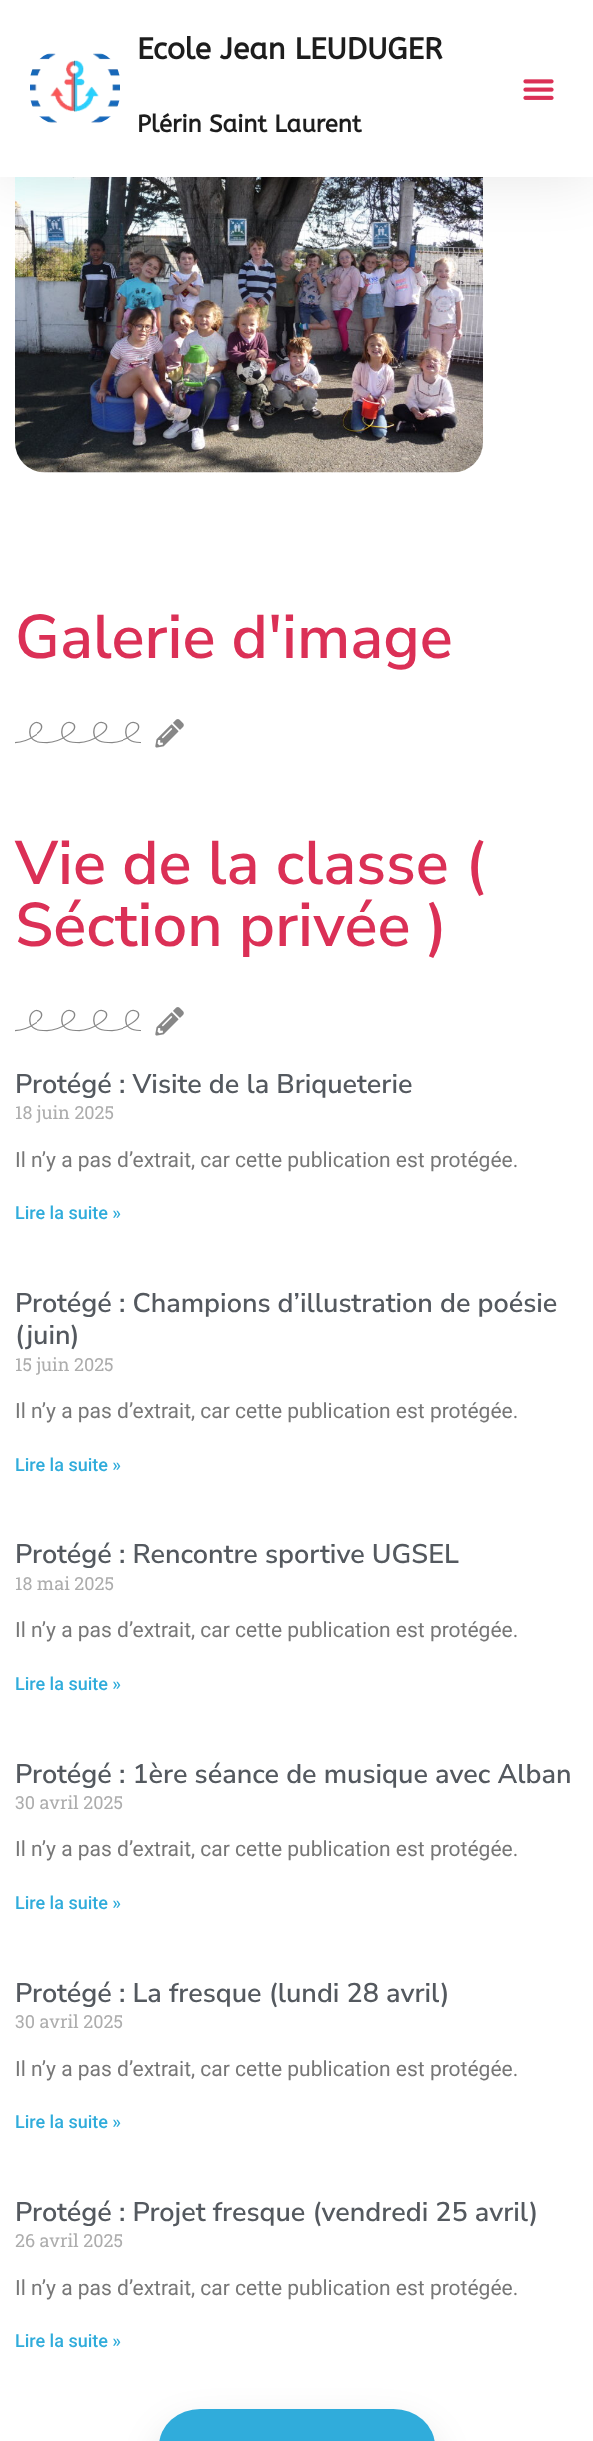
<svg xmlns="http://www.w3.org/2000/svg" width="593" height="2441">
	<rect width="100%" height="100%" fill="#FFFFFF" />
	<image x="15" y="177" width="468" height="296" href="assets/img3.png" />
	<rect x="0" y="0" width="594" height="177" fill="#000000" fill-opacity="0.1" filter="blur(28.5px)" />
	<rect x="0" y="0" width="593" height="177" fill="#FFFFFF" />
	<image x="30" y="53" width="90" height="70" href="assets/img1.png" />
	<text x="137" y="59" font-family="ABeeZee" font-size="30" font-weight="700" fill="#1D1D1D">Ecole Jean LEUDUGER</text>
	<text x="137" y="132" font-family="ABeeZee" font-size="24" font-weight="700" fill="#1D1D1D">Plérin Saint Laurent</text>
	<image x="523" y="79" width="31" height="21" href="assets/img2.png" />
	<text x="15" y="658" font-family="Nunito Sans" font-size="61.5" font-weight="600" fill="#DB3056">Galerie d'image</text>
	<image x="15" y="721" width="126" height="23" href="assets/img4.png" />
	<image x="155" y="719" width="29" height="29" href="assets/img5.png" />
	<g font-family="Nunito Sans" font-size="61.5" font-weight="600" fill="#DB3056">
		<text x="15" y="884">Vie de la classe (</text>
		<text x="15" y="946">Séction privée )</text>
	</g>
	<image x="15" y="1009" width="126" height="23" href="assets/img4.png" />
	<image x="155" y="1007" width="29" height="29" href="assets/img5.png" />
	<text x="15" y="1093" font-family="Nunito Sans" font-size="27" font-weight="600" fill="#54595F">Protégé : Visite de la Briqueterie</text>
	<text x="15" y="1119" font-family="Roboto Slab" font-size="18" fill="#ADADAD">18 juin 2025</text>
	<text x="15" y="1167" font-family="Roboto" font-size="21" fill="#777777">Il n’y a pas d’extrait, car cette publication est protégée.</text>
	<text x="15" y="1219" font-family="Roboto" font-size="18" font-weight="500" fill="#30ACDB">Lire la suite »</text>
	<g font-family="Nunito Sans" font-size="27" font-weight="600" fill="#54595F">
		<text x="15" y="1312">Protégé : Champions d’illustration de poésie</text>
		<text x="15" y="1344">(juin)</text>
	</g>
	<text x="15" y="1371" font-family="Roboto Slab" font-size="18" fill="#ADADAD">15 juin 2025</text>
	<text x="15" y="1418" font-family="Roboto" font-size="21" fill="#777777">Il n’y a pas d’extrait, car cette publication est protégée.</text>
	<text x="15" y="1471" font-family="Roboto" font-size="18" font-weight="500" fill="#30ACDB">Lire la suite »</text>
	<text x="15" y="1563" font-family="Nunito Sans" font-size="27" font-weight="600" fill="#54595F">Protégé : Rencontre sportive UGSEL</text>
	<text x="15" y="1590" font-family="Roboto Slab" font-size="18" fill="#ADADAD">18 mai 2025</text>
	<text x="15" y="1637" font-family="Roboto" font-size="21" fill="#777777">Il n’y a pas d’extrait, car cette publication est protégée.</text>
	<text x="15" y="1690" font-family="Roboto" font-size="18" font-weight="500" fill="#30ACDB">Lire la suite »</text>
	<text x="15" y="1783" font-family="Nunito Sans" font-size="27" font-weight="600" fill="#54595F">Protégé : 1ère séance de musique avec Alban</text>
	<text x="15" y="1809" font-family="Roboto Slab" font-size="18" fill="#ADADAD">30 avril 2025</text>
	<text x="15" y="1856" font-family="Roboto" font-size="21" fill="#777777">Il n’y a pas d’extrait, car cette publication est protégée.</text>
	<text x="15" y="1909" font-family="Roboto" font-size="18" font-weight="500" fill="#30ACDB">Lire la suite »</text>
	<text x="15" y="2002" font-family="Nunito Sans" font-size="27" font-weight="600" fill="#54595F">Protégé : La fresque (lundi 28 avril)</text>
	<text x="15" y="2028" font-family="Roboto Slab" font-size="18" fill="#ADADAD">30 avril 2025</text>
	<text x="15" y="2076" font-family="Roboto" font-size="21" fill="#777777">Il n’y a pas d’extrait, car cette publication est protégée.</text>
	<text x="15" y="2128" font-family="Roboto" font-size="18" font-weight="500" fill="#30ACDB">Lire la suite »</text>
	<text x="15" y="2221" font-family="Nunito Sans" font-size="27" font-weight="600" fill="#54595F">Protégé : Projet fresque (vendredi 25 avril)</text>
	<text x="15" y="2247" font-family="Roboto Slab" font-size="18" fill="#ADADAD">26 avril 2025</text>
	<text x="15" y="2295" font-family="Roboto" font-size="21" fill="#777777">Il n’y a pas d’extrait, car cette publication est protégée.</text>
	<text x="15" y="2347" font-family="Roboto" font-size="18" font-weight="500" fill="#30ACDB">Lire la suite »</text>
	<rect x="165" y="2433" width="264" height="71" rx="35.5" fill="#000000" fill-opacity="0.19" filter="blur(22px)" />
	<rect x="159" y="2409" width="276" height="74" rx="41.5" fill="#30ACDB" />
</svg>
